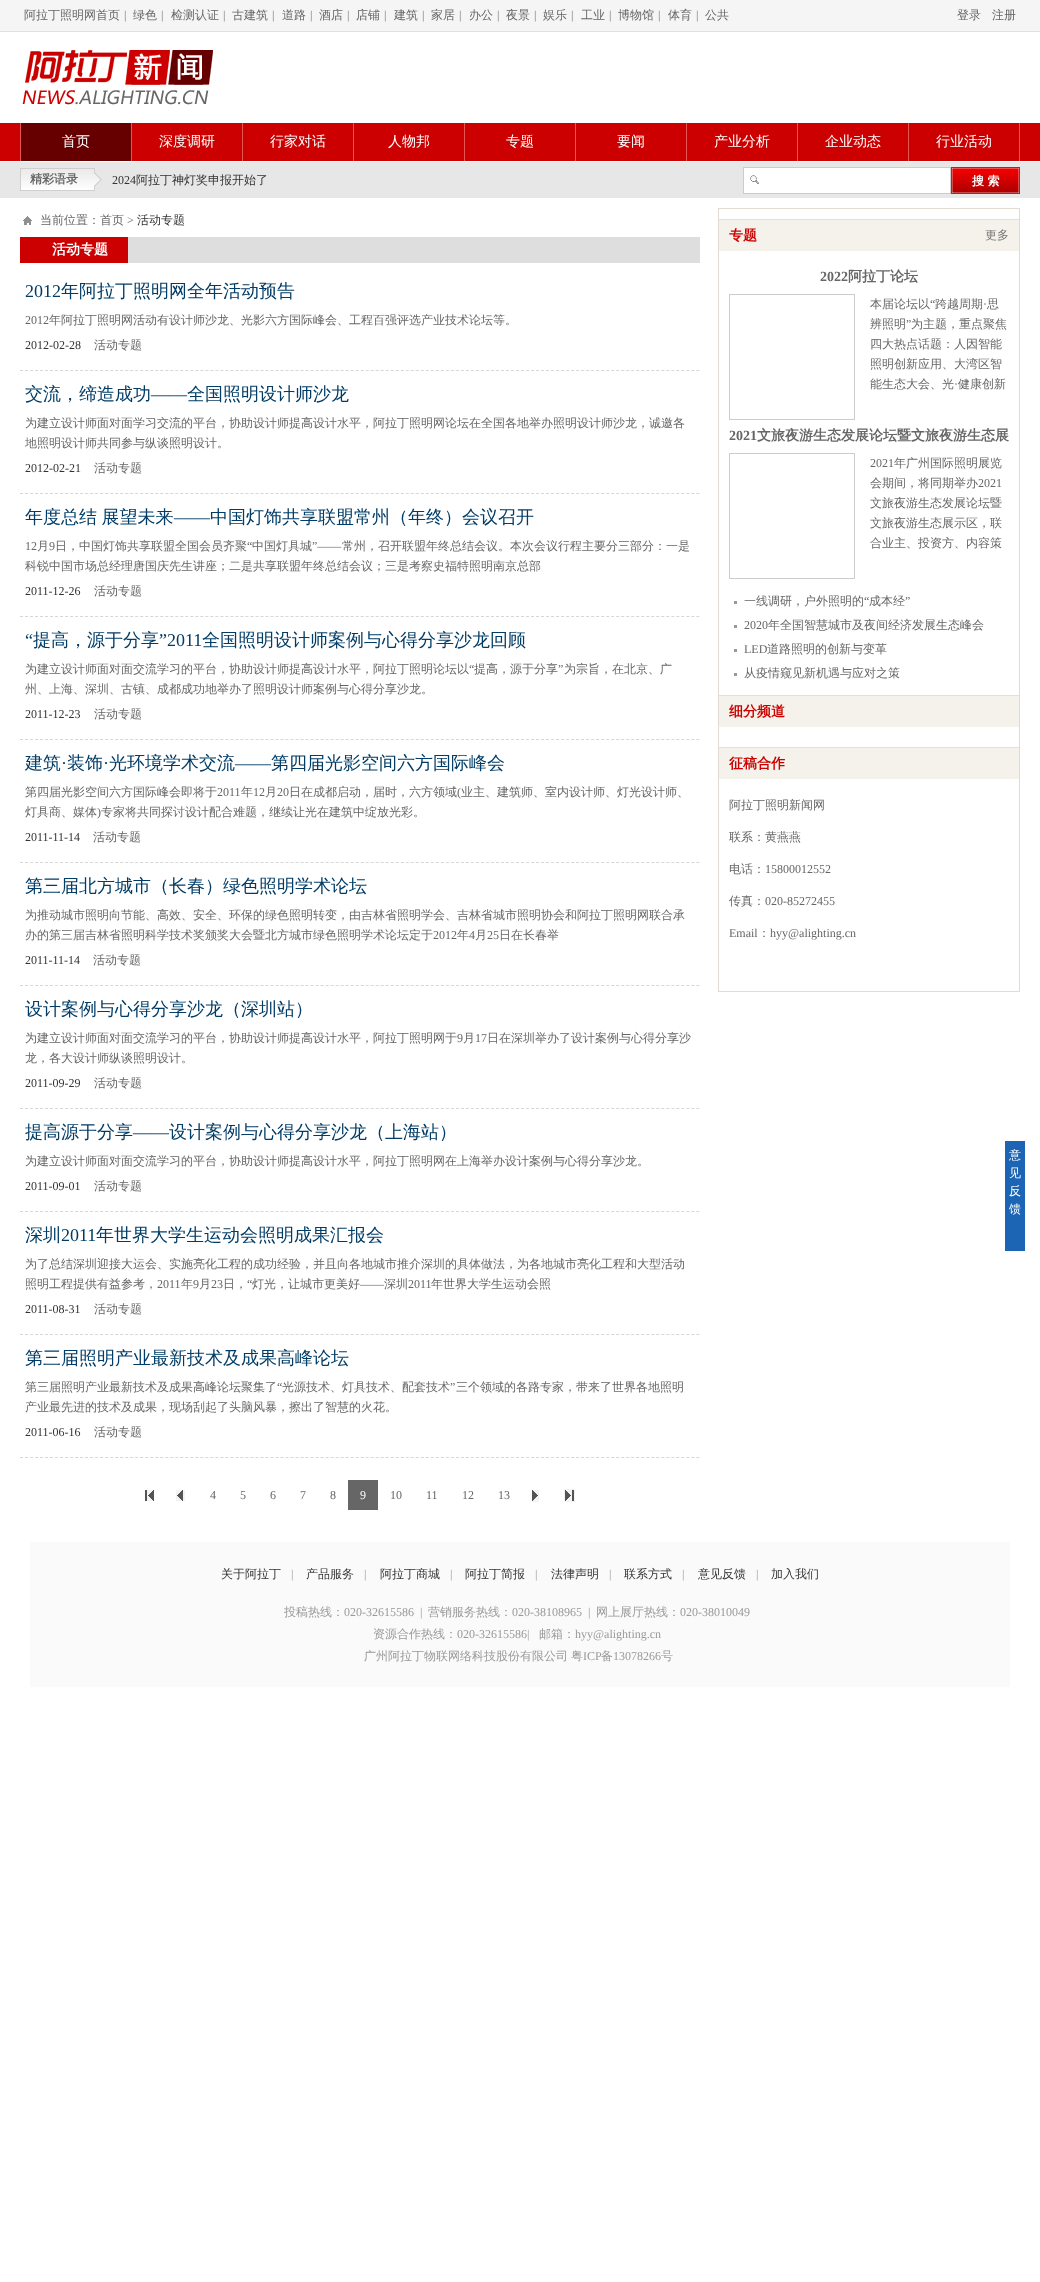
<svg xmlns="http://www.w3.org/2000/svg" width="1040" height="2282">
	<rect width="100%" height="100%" fill="#FFFFFF" />
	<rect x="0" y="0" width="1040" height="31" fill="#F5F5F5" />
	<rect x="0" y="31" width="1040" height="1" fill="#E0E0E0" />
	<text x="24" y="19" font-family="WenQuanYi Zen Hei" font-size="12" font-weight="500" fill="#666666">阿拉丁照明网首页</text>
	<text x="124" y="19" font-family="Liberation Serif" font-size="12" fill="#777777">|</text>
	<text x="133" y="19" font-family="WenQuanYi Zen Hei" font-size="12" font-weight="500" fill="#666666">绿色</text>
	<text x="161" y="19" font-family="Liberation Serif" font-size="12" fill="#777777">|</text>
	<text x="171" y="19" font-family="WenQuanYi Zen Hei" font-size="12" font-weight="500" fill="#666666">检测认证</text>
	<text x="223" y="19" font-family="Liberation Serif" font-size="12" fill="#777777">|</text>
	<text x="232" y="19" font-family="WenQuanYi Zen Hei" font-size="12" font-weight="500" fill="#666666">古建筑</text>
	<text x="272" y="19" font-family="Liberation Serif" font-size="12" fill="#777777">|</text>
	<text x="282" y="19" font-family="WenQuanYi Zen Hei" font-size="12" font-weight="500" fill="#666666">道路</text>
	<text x="310" y="19" font-family="Liberation Serif" font-size="12" fill="#777777">|</text>
	<text x="319" y="19" font-family="WenQuanYi Zen Hei" font-size="12" font-weight="500" fill="#666666">酒店</text>
	<text x="347" y="19" font-family="Liberation Serif" font-size="12" fill="#777777">|</text>
	<text x="356" y="19" font-family="WenQuanYi Zen Hei" font-size="12" font-weight="500" fill="#666666">店铺</text>
	<text x="384" y="19" font-family="Liberation Serif" font-size="12" fill="#777777">|</text>
	<text x="394" y="19" font-family="WenQuanYi Zen Hei" font-size="12" font-weight="500" fill="#666666">建筑</text>
	<text x="422" y="19" font-family="Liberation Serif" font-size="12" fill="#777777">|</text>
	<text x="431" y="19" font-family="WenQuanYi Zen Hei" font-size="12" font-weight="500" fill="#666666">家居</text>
	<text x="459" y="19" font-family="Liberation Serif" font-size="12" fill="#777777">|</text>
	<text x="469" y="19" font-family="WenQuanYi Zen Hei" font-size="12" font-weight="500" fill="#666666">办公</text>
	<text x="497" y="19" font-family="Liberation Serif" font-size="12" fill="#777777">|</text>
	<text x="506" y="19" font-family="WenQuanYi Zen Hei" font-size="12" font-weight="500" fill="#666666">夜景</text>
	<text x="534" y="19" font-family="Liberation Serif" font-size="12" fill="#777777">|</text>
	<text x="543" y="19" font-family="WenQuanYi Zen Hei" font-size="12" font-weight="500" fill="#666666">娱乐</text>
	<text x="571" y="19" font-family="Liberation Serif" font-size="12" fill="#777777">|</text>
	<text x="581" y="19" font-family="WenQuanYi Zen Hei" font-size="12" font-weight="500" fill="#666666">工业</text>
	<text x="609" y="19" font-family="Liberation Serif" font-size="12" fill="#777777">|</text>
	<text x="618" y="19" font-family="WenQuanYi Zen Hei" font-size="12" font-weight="500" fill="#666666">博物馆</text>
	<text x="658" y="19" font-family="Liberation Serif" font-size="12" fill="#777777">|</text>
	<text x="668" y="19" font-family="WenQuanYi Zen Hei" font-size="12" font-weight="500" fill="#666666">体育</text>
	<text x="696" y="19" font-family="Liberation Serif" font-size="12" fill="#777777">|</text>
	<g font-family="WenQuanYi Zen Hei" font-size="12" font-weight="500" fill="#666666">
		<text x="705" y="19">公共</text>
		<text x="957" y="19">登录</text>
		<text x="992" y="19">注册</text>
	</g>
	<image x="22" y="50" width="191" height="55" href="assets/img1.png" />
	<rect x="0" y="123" width="1040" height="38" fill="#CC0000" />
	<rect x="1019" y="123" width="1" height="38" fill="#E45656" />
	<rect x="21" y="123" width="110" height="38" fill="#660000" />
	<rect x="20" y="123" width="1" height="38" fill="#E45656" />
	<text x="62" y="146" font-family="WenQuanYi Zen Hei" font-size="14" font-weight="500" fill="#FFFFFF">首页</text>
	<rect x="131" y="123" width="1" height="38" fill="#E45656" />
	<text x="159" y="146" font-family="WenQuanYi Zen Hei" font-size="14" font-weight="500" fill="#FFFFFF">深度调研</text>
	<rect x="242" y="123" width="1" height="38" fill="#E45656" />
	<text x="270" y="146" font-family="WenQuanYi Zen Hei" font-size="14" font-weight="500" fill="#FFFFFF">行家对话</text>
	<rect x="353" y="123" width="1" height="38" fill="#E45656" />
	<text x="388" y="146" font-family="WenQuanYi Zen Hei" font-size="14" font-weight="500" fill="#FFFFFF">人物邦</text>
	<rect x="464" y="123" width="1" height="38" fill="#E45656" />
	<text x="506" y="146" font-family="WenQuanYi Zen Hei" font-size="14" font-weight="500" fill="#FFFFFF">专题</text>
	<rect x="575" y="123" width="1" height="38" fill="#E45656" />
	<text x="617" y="146" font-family="WenQuanYi Zen Hei" font-size="14" font-weight="500" fill="#FFFFFF">要闻</text>
	<rect x="686" y="123" width="1" height="38" fill="#E45656" />
	<text x="714" y="146" font-family="WenQuanYi Zen Hei" font-size="14" font-weight="500" fill="#FFFFFF">产业分析</text>
	<rect x="797" y="123" width="1" height="38" fill="#E45656" />
	<text x="825" y="146" font-family="WenQuanYi Zen Hei" font-size="14" font-weight="500" fill="#FFFFFF">企业动态</text>
	<rect x="908" y="123" width="1" height="38" fill="#E45656" />
	<text x="936" y="146" font-family="WenQuanYi Zen Hei" font-size="14" font-weight="500" fill="#FFFFFF">行业活动</text>
	<rect x="0" y="162" width="1040" height="36" fill="#E7E7E7" />
	<image x="20" y="168" width="82" height="23" href="assets/img2.png" />
	<text x="30" y="183" font-family="WenQuanYi Zen Hei" font-size="12" font-weight="700" fill="#666666">精彩语录</text>
	<text x="112" y="184" font-family="Liberation Serif" font-size="12" fill="#333333">2024</text>
	<text x="136" y="184" font-family="WenQuanYi Zen Hei" font-size="12" font-weight="500" fill="#333333">阿拉丁神灯奖申报开始了</text>
	<rect x="744" y="168" width="206" height="25" fill="#FFFFFF" />
	<image x="747" y="175" width="12" height="9" href="assets/img3.png" />
	<rect x="743.5" y="167.5" width="207" height="26" fill="none" stroke="#CCCCCC" />
	<image x="951" y="167" width="69" height="27" href="assets/img4.png" />
	<text x="972" y="185" font-family="WenQuanYi Zen Hei" font-size="12" font-weight="700" fill="#FFFFFF">搜 索</text>
	<image x="23" y="216" width="9" height="9" href="assets/img5.png" />
	<text x="40" y="224" font-family="WenQuanYi Zen Hei" font-size="12" font-weight="500" fill="#666666">当前位置：首页</text>
	<text x="127" y="224" font-family="Liberation Serif" font-size="12" fill="#666666">&gt;</text>
	<text x="137" y="224" font-family="WenQuanYi Zen Hei" font-size="12" font-weight="500" fill="#333333">活动专题</text>
	<rect x="128" y="237" width="572" height="26" fill="#DEDEDE" />
	<rect x="20" y="237" width="108" height="26" fill="#CC0000" />
	<text x="52" y="254" font-family="WenQuanYi Zen Hei" font-size="14" font-weight="700" fill="#FFFFFF">活动专题</text>
	<path d="M20 370.5H700" fill="none" stroke="#D7D7D7" stroke-dasharray="3 2.01" />
	<text x="25" y="297" font-family="Liberation Serif" font-size="18" fill="#003C66">2012</text>
	<text x="61" y="297" font-family="WenQuanYi Zen Hei" font-size="18" font-weight="500" fill="#003C66">年阿拉丁照明网全年活动预告</text>
	<text x="25" y="324" font-family="Liberation Serif" font-size="12" fill="#666666">2012</text>
	<text x="49" y="324" font-family="WenQuanYi Zen Hei" font-size="12" font-weight="500" fill="#666666">年阿拉丁照明网活动有设计师沙龙、光影六方国际峰会、工程百强评选产业技术论坛等。</text>
	<text x="25" y="349" font-family="Liberation Serif" font-size="12" fill="#333333">2012-02-28</text>
	<text x="94" y="349" font-family="WenQuanYi Zen Hei" font-size="12" font-weight="500" fill="#666666">活动专题</text>
	<path d="M20 493.5H700" fill="none" stroke="#D7D7D7" stroke-dasharray="3 2.01" />
	<text x="25" y="400" font-family="WenQuanYi Zen Hei" font-size="18" font-weight="500" fill="#003C66">交流，缔造成功</text>
	<text x="151" y="400" font-family="Liberation Serif" font-size="18" fill="#003C66">——</text>
	<text x="187" y="400" font-family="WenQuanYi Zen Hei" font-size="18" font-weight="500" fill="#003C66">全国照明设计师沙龙</text>
	<g font-family="WenQuanYi Zen Hei" font-size="12" font-weight="500" fill="#666666">
		<text x="25" y="427">为建立设计师面对面学习交流的平台，协助设计师提高设计水平，阿拉丁照明网论坛在全国各地举办照明设计师沙龙，诚邀各</text>
		<text x="25" y="447">地照明设计师共同参与纵谈照明设计。</text>
	</g>
	<text x="25" y="472" font-family="Liberation Serif" font-size="12" fill="#333333">2012-02-21</text>
	<text x="94" y="472" font-family="WenQuanYi Zen Hei" font-size="12" font-weight="500" fill="#666666">活动专题</text>
	<path d="M20 616.5H700" fill="none" stroke="#D7D7D7" stroke-dasharray="3 2.01" />
	<text x="25" y="523" word-spacing="-1" font-family="WenQuanYi Zen Hei" font-size="18" font-weight="500" fill="#003C66">年度总结 展望未来</text>
	<text x="174" y="523" font-family="Liberation Serif" font-size="18" fill="#003C66">——</text>
	<text x="210" y="523" font-family="WenQuanYi Zen Hei" font-size="18" font-weight="500" fill="#003C66">中国灯饰共享联盟常州（年终）会议召开</text>
	<text x="25" y="550" font-family="Liberation Serif" font-size="12" fill="#666666">12</text>
	<text x="37" y="550" font-family="WenQuanYi Zen Hei" font-size="12" font-weight="500" fill="#666666">月</text>
	<text x="49" y="550" font-family="Liberation Serif" font-size="12" fill="#666666">9</text>
	<text x="55" y="550" font-family="WenQuanYi Zen Hei" font-size="12" font-weight="500" fill="#666666">日，中国灯饰共享联盟全国会员齐聚</text>
	<text x="247" y="550" font-family="Liberation Serif" font-size="12" fill="#666666">“</text>
	<text x="252" y="550" font-family="WenQuanYi Zen Hei" font-size="12" font-weight="500" fill="#666666">中国灯具城</text>
	<text x="312" y="550" font-family="Liberation Serif" font-size="12" fill="#666666">”——</text>
	<g font-family="WenQuanYi Zen Hei" font-size="12" font-weight="500" fill="#666666">
		<text x="342" y="550">常州，召开联盟年终总结会议。本次会议行程主要分三部分：一是</text>
		<text x="25" y="570">科锐中国市场总经理唐国庆先生讲座；二是共享联盟年终总结会议；三是考察史福特照明南京总部</text>
	</g>
	<text x="25" y="595" font-family="Liberation Serif" font-size="12" fill="#333333">2011-12-26</text>
	<text x="94" y="595" font-family="WenQuanYi Zen Hei" font-size="12" font-weight="500" fill="#666666">活动专题</text>
	<path d="M20 739.5H700" fill="none" stroke="#D7D7D7" stroke-dasharray="3 2.01" />
	<text x="25" y="646" font-family="Liberation Serif" font-size="18" fill="#003C66">“</text>
	<text x="33" y="646" font-family="WenQuanYi Zen Hei" font-size="18" font-weight="500" fill="#003C66">提高，源于分享</text>
	<text x="159" y="646" font-family="Liberation Serif" font-size="18" fill="#003C66">”2011</text>
	<text x="202" y="646" font-family="WenQuanYi Zen Hei" font-size="18" font-weight="500" fill="#003C66">全国照明设计师案例与心得分享沙龙回顾</text>
	<text x="25" y="673" font-family="WenQuanYi Zen Hei" font-size="12" font-weight="500" fill="#666666">为建立设计师面对面交流学习的平台，协助设计师提高设计水平，阿拉丁照明论坛以</text>
	<text x="469" y="673" font-family="Liberation Serif" font-size="12" fill="#666666">“</text>
	<text x="474" y="673" font-family="WenQuanYi Zen Hei" font-size="12" font-weight="500" fill="#666666">提高，源于分享</text>
	<text x="558" y="673" font-family="Liberation Serif" font-size="12" fill="#666666">”</text>
	<g font-family="WenQuanYi Zen Hei" font-size="12" font-weight="500" fill="#666666">
		<text x="564" y="673">为宗旨，在北京、广</text>
		<text x="25" y="693">州、上海、深圳、古镇、成都成功地举办了照明设计师案例与心得分享沙龙。</text>
	</g>
	<text x="25" y="718" font-family="Liberation Serif" font-size="12" fill="#333333">2011-12-23</text>
	<text x="94" y="718" font-family="WenQuanYi Zen Hei" font-size="12" font-weight="500" fill="#666666">活动专题</text>
	<path d="M20 862.5H700" fill="none" stroke="#D7D7D7" stroke-dasharray="3 2.01" />
	<text x="25" y="769" font-family="WenQuanYi Zen Hei" font-size="18" font-weight="500" fill="#003C66">建筑</text>
	<text x="61" y="769" font-family="Liberation Serif" font-size="18" fill="#003C66">·</text>
	<text x="67" y="769" font-family="WenQuanYi Zen Hei" font-size="18" font-weight="500" fill="#003C66">装饰</text>
	<text x="103" y="769" font-family="Liberation Serif" font-size="18" fill="#003C66">·</text>
	<text x="109" y="769" font-family="WenQuanYi Zen Hei" font-size="18" font-weight="500" fill="#003C66">光环境学术交流</text>
	<text x="235" y="769" font-family="Liberation Serif" font-size="18" fill="#003C66">——</text>
	<text x="271" y="769" font-family="WenQuanYi Zen Hei" font-size="18" font-weight="500" fill="#003C66">第四届光影空间六方国际峰会</text>
	<text x="25" y="796" font-family="WenQuanYi Zen Hei" font-size="12" font-weight="500" fill="#666666">第四届光影空间六方国际峰会即将于</text>
	<text x="217" y="796" font-family="Liberation Serif" font-size="12" fill="#666666">2011</text>
	<text x="241" y="796" font-family="WenQuanYi Zen Hei" font-size="12" font-weight="500" fill="#666666">年</text>
	<text x="253" y="796" font-family="Liberation Serif" font-size="12" fill="#666666">12</text>
	<text x="265" y="796" font-family="WenQuanYi Zen Hei" font-size="12" font-weight="500" fill="#666666">月</text>
	<text x="277" y="796" font-family="Liberation Serif" font-size="12" fill="#666666">20</text>
	<text x="289" y="796" font-family="WenQuanYi Zen Hei" font-size="12" font-weight="500" fill="#666666">日在成都启动，届时，六方领域</text>
	<text x="457" y="796" font-family="Liberation Serif" font-size="12" fill="#666666">(</text>
	<g font-family="WenQuanYi Zen Hei" font-size="12" font-weight="500" fill="#666666">
		<text x="461" y="796">业主、建筑师、室内设计师、灯光设计师、</text>
		<text x="25" y="816">灯具商、媒体</text>
	</g>
	<text x="97" y="816" font-family="Liberation Serif" font-size="12" fill="#666666">)</text>
	<text x="101" y="816" font-family="WenQuanYi Zen Hei" font-size="12" font-weight="500" fill="#666666">专家将共同探讨设计配合难题，继续让光在建筑中绽放光彩。</text>
	<text x="25" y="841" font-family="Liberation Serif" font-size="12" fill="#333333">2011-11-14</text>
	<text x="93" y="841" font-family="WenQuanYi Zen Hei" font-size="12" font-weight="500" fill="#666666">活动专题</text>
	<path d="M20 985.5H700" fill="none" stroke="#D7D7D7" stroke-dasharray="3 2.01" />
	<text x="25" y="892" font-family="WenQuanYi Zen Hei" font-size="18" font-weight="500" fill="#003C66">第三届北方城市（长春）绿色照明学术论坛</text>
	<g font-family="WenQuanYi Zen Hei" font-size="12" font-weight="500" fill="#666666">
		<text x="25" y="919">为推动城市照明向节能、高效、安全、环保的绿色照明转变，由吉林省照明学会、吉林省城市照明协会和阿拉丁照明网联合承</text>
		<text x="25" y="939">办的第三届吉林省照明科学技术奖颁奖大会暨北方城市绿色照明学术论坛定于</text>
	</g>
	<text x="433" y="939" font-family="Liberation Serif" font-size="12" fill="#666666">2012</text>
	<text x="457" y="939" font-family="WenQuanYi Zen Hei" font-size="12" font-weight="500" fill="#666666">年</text>
	<text x="469" y="939" font-family="Liberation Serif" font-size="12" fill="#666666">4</text>
	<text x="475" y="939" font-family="WenQuanYi Zen Hei" font-size="12" font-weight="500" fill="#666666">月</text>
	<text x="487" y="939" font-family="Liberation Serif" font-size="12" fill="#666666">25</text>
	<text x="499" y="939" font-family="WenQuanYi Zen Hei" font-size="12" font-weight="500" fill="#666666">日在长春举</text>
	<text x="25" y="964" font-family="Liberation Serif" font-size="12" fill="#333333">2011-11-14</text>
	<text x="93" y="964" font-family="WenQuanYi Zen Hei" font-size="12" font-weight="500" fill="#666666">活动专题</text>
	<path d="M20 1108.5H700" fill="none" stroke="#D7D7D7" stroke-dasharray="3 2.01" />
	<text x="25" y="1015" font-family="WenQuanYi Zen Hei" font-size="18" font-weight="500" fill="#003C66">设计案例与心得分享沙龙（深圳站）</text>
	<text x="25" y="1042" font-family="WenQuanYi Zen Hei" font-size="12" font-weight="500" fill="#666666">为建立设计师面对面交流学习的平台，协助设计师提高设计水平，阿拉丁照明网于</text>
	<text x="457" y="1042" font-family="Liberation Serif" font-size="12" fill="#666666">9</text>
	<text x="463" y="1042" font-family="WenQuanYi Zen Hei" font-size="12" font-weight="500" fill="#666666">月</text>
	<text x="475" y="1042" font-family="Liberation Serif" font-size="12" fill="#666666">17</text>
	<g font-family="WenQuanYi Zen Hei" font-size="12" font-weight="500" fill="#666666">
		<text x="487" y="1042">日在深圳举办了设计案例与心得分享沙</text>
		<text x="25" y="1062">龙，各大设计师纵谈照明设计。</text>
	</g>
	<text x="25" y="1087" font-family="Liberation Serif" font-size="12" fill="#333333">2011-09-29</text>
	<text x="94" y="1087" font-family="WenQuanYi Zen Hei" font-size="12" font-weight="500" fill="#666666">活动专题</text>
	<path d="M20 1211.5H700" fill="none" stroke="#D7D7D7" stroke-dasharray="3 2.01" />
	<text x="25" y="1138" font-family="WenQuanYi Zen Hei" font-size="18" font-weight="500" fill="#003C66">提高源于分享</text>
	<text x="133" y="1138" font-family="Liberation Serif" font-size="18" fill="#003C66">——</text>
	<text x="169" y="1138" font-family="WenQuanYi Zen Hei" font-size="18" font-weight="500" fill="#003C66">设计案例与心得分享沙龙（上海站）</text>
	<text x="25" y="1165" font-family="WenQuanYi Zen Hei" font-size="12" font-weight="500" fill="#666666">为建立设计师面对面交流学习的平台，协助设计师提高设计水平，阿拉丁照明网在上海举办设计案例与心得分享沙龙。</text>
	<text x="25" y="1190" font-family="Liberation Serif" font-size="12" fill="#333333">2011-09-01</text>
	<text x="94" y="1190" font-family="WenQuanYi Zen Hei" font-size="12" font-weight="500" fill="#666666">活动专题</text>
	<path d="M20 1334.5H700" fill="none" stroke="#D7D7D7" stroke-dasharray="3 2.01" />
	<text x="25" y="1241" font-family="WenQuanYi Zen Hei" font-size="18" font-weight="500" fill="#003C66">深圳</text>
	<text x="61" y="1241" font-family="Liberation Serif" font-size="18" fill="#003C66">2011</text>
	<text x="96" y="1241" font-family="WenQuanYi Zen Hei" font-size="18" font-weight="500" fill="#003C66">年世界大学生运动会照明成果汇报会</text>
	<g font-family="WenQuanYi Zen Hei" font-size="12" font-weight="500" fill="#666666">
		<text x="25" y="1268">为了总结深圳迎接大运会、实施亮化工程的成功经验，并且向各地城市推介深圳的具体做法，为各地城市亮化工程和大型活动</text>
		<text x="25" y="1288">照明工程提供有益参考，</text>
	</g>
	<text x="157" y="1288" font-family="Liberation Serif" font-size="12" fill="#666666">2011</text>
	<text x="181" y="1288" font-family="WenQuanYi Zen Hei" font-size="12" font-weight="500" fill="#666666">年</text>
	<text x="193" y="1288" font-family="Liberation Serif" font-size="12" fill="#666666">9</text>
	<text x="199" y="1288" font-family="WenQuanYi Zen Hei" font-size="12" font-weight="500" fill="#666666">月</text>
	<text x="211" y="1288" font-family="Liberation Serif" font-size="12" fill="#666666">23</text>
	<text x="223" y="1288" font-family="WenQuanYi Zen Hei" font-size="12" font-weight="500" fill="#666666">日，</text>
	<text x="247" y="1288" font-family="Liberation Serif" font-size="12" fill="#666666">“</text>
	<text x="252" y="1288" font-family="WenQuanYi Zen Hei" font-size="12" font-weight="500" fill="#666666">灯光，让城市更美好</text>
	<text x="360" y="1288" font-family="Liberation Serif" font-size="12" fill="#666666">——</text>
	<text x="384" y="1288" font-family="WenQuanYi Zen Hei" font-size="12" font-weight="500" fill="#666666">深圳</text>
	<text x="408" y="1288" font-family="Liberation Serif" font-size="12" fill="#666666">2011</text>
	<text x="431" y="1288" font-family="WenQuanYi Zen Hei" font-size="12" font-weight="500" fill="#666666">年世界大学生运动会照</text>
	<text x="25" y="1313" font-family="Liberation Serif" font-size="12" fill="#333333">2011-08-31</text>
	<text x="94" y="1313" font-family="WenQuanYi Zen Hei" font-size="12" font-weight="500" fill="#666666">活动专题</text>
	<path d="M20 1457.5H700" fill="none" stroke="#D7D7D7" stroke-dasharray="3 2.01" />
	<text x="25" y="1364" font-family="WenQuanYi Zen Hei" font-size="18" font-weight="500" fill="#003C66">第三届照明产业最新技术及成果高峰论坛</text>
	<text x="25" y="1391" font-family="WenQuanYi Zen Hei" font-size="12" font-weight="500" fill="#666666">第三届照明产业最新技术及成果高峰论坛聚集了</text>
	<text x="277" y="1391" font-family="Liberation Serif" font-size="12" fill="#666666">“</text>
	<text x="282" y="1391" font-family="WenQuanYi Zen Hei" font-size="12" font-weight="500" fill="#666666">光源技术、灯具技术、配套技术</text>
	<text x="450" y="1391" font-family="Liberation Serif" font-size="12" fill="#666666">”</text>
	<g font-family="WenQuanYi Zen Hei" font-size="12" font-weight="500" fill="#666666">
		<text x="456" y="1391">三个领域的各路专家，带来了世界各地照明</text>
		<text x="25" y="1411">产业最先进的技术及成果，现场刮起了头脑风暴，擦出了智慧的火花。</text>
	</g>
	<text x="25" y="1436" font-family="Liberation Serif" font-size="12" fill="#333333">2011-06-16</text>
	<text x="94" y="1436" font-family="WenQuanYi Zen Hei" font-size="12" font-weight="500" fill="#666666">活动专题</text>
	<image x="145" y="1490" width="9" height="11" href="assets/img6.png" />
	<image x="176" y="1490" width="9" height="11" href="assets/img7.png" />
	<g font-family="Liberation Serif" font-size="12" fill="#666666">
		<text x="210" y="1499">4</text>
		<text x="240" y="1499">5</text>
		<text x="270" y="1499">6</text>
		<text x="300" y="1499">7</text>
		<text x="330" y="1499">8</text>
	</g>
	<rect x="348" y="1480" width="30" height="30" fill="#666666" />
	<text x="360" y="1499" font-family="Liberation Serif" font-size="12" fill="#FFFFFF">9</text>
	<g font-family="Liberation Serif" font-size="12" fill="#666666">
		<text x="390" y="1499">10</text>
		<text x="426" y="1499">11</text>
		<text x="462" y="1499">12</text>
		<text x="498" y="1499">13</text>
	</g>
	<image x="532" y="1490" width="7" height="12" href="assets/img8.png" />
	<image x="564" y="1489" width="11" height="13" href="assets/img9.png" />
	<rect x="718.5" y="208.5" width="301" height="783" fill="none" stroke="#E2DBD2" />
	<rect x="719" y="220" width="300" height="31" fill="#F4F2EA" />
	<rect x="719" y="219" width="300" height="1" fill="#E4DED6" />
	<text x="729" y="240" font-family="WenQuanYi Zen Hei" font-size="14" font-weight="700" fill="#CC0000">专题</text>
	<text x="985" y="239" font-family="WenQuanYi Zen Hei" font-size="12" font-weight="500" fill="#777777">更多</text>
	<text x="820" y="281" font-family="Liberation Serif" font-size="14" font-weight="700" fill="#666666">2022</text>
	<text x="848" y="281" font-family="WenQuanYi Zen Hei" font-size="14" font-weight="700" fill="#666666">阿拉丁论坛</text>
	<rect x="729.5" y="294.5" width="125" height="125" fill="none" stroke="#CCCCCC" />
	<text x="870" y="308" font-family="WenQuanYi Zen Hei" font-size="12" font-weight="500" fill="#666666">本届论坛以</text>
	<text x="930" y="308" font-family="Liberation Serif" font-size="12" fill="#666666">“</text>
	<text x="935" y="308" font-family="WenQuanYi Zen Hei" font-size="12" font-weight="500" fill="#666666">跨越周期</text>
	<text x="983" y="308" font-family="Liberation Serif" font-size="12" fill="#666666">·</text>
	<g font-family="WenQuanYi Zen Hei" font-size="12" font-weight="500" fill="#666666">
		<text x="987" y="308">思</text>
		<text x="870" y="328">辨照明</text>
	</g>
	<text x="906" y="328" font-family="Liberation Serif" font-size="12" fill="#666666">”</text>
	<g font-family="WenQuanYi Zen Hei" font-size="12" font-weight="500" fill="#666666">
		<text x="911" y="328">为主题，重点聚焦</text>
		<text x="870" y="348">四大热点话题：人因智能</text>
		<text x="870" y="368">照明创新应用、大湾区智</text>
		<text x="870" y="388">能生态大会、光</text>
	</g>
	<text x="954" y="388" font-family="Liberation Serif" font-size="12" fill="#666666">·</text>
	<text x="958" y="388" font-family="WenQuanYi Zen Hei" font-size="12" font-weight="500" fill="#666666">健康创新</text>
	<text x="729" y="440" font-family="Liberation Serif" font-size="14" font-weight="700" fill="#666666">2021</text>
	<text x="757" y="440" font-family="WenQuanYi Zen Hei" font-size="14" font-weight="700" fill="#666666">文旅夜游生态发展论坛暨文旅夜游生态展</text>
	<rect x="729.5" y="453.5" width="125" height="125" fill="none" stroke="#CCCCCC" />
	<text x="870" y="467" font-family="Liberation Serif" font-size="12" fill="#666666">2021</text>
	<g font-family="WenQuanYi Zen Hei" font-size="12" font-weight="500" fill="#666666">
		<text x="894" y="467">年广州国际照明展览</text>
		<text x="870" y="487">会期间，将同期举办</text>
	</g>
	<text x="978" y="487" font-family="Liberation Serif" font-size="12" fill="#666666">2021</text>
	<g font-family="WenQuanYi Zen Hei" font-size="12" font-weight="500" fill="#666666">
		<text x="870" y="507">文旅夜游生态发展论坛暨</text>
		<text x="870" y="527">文旅夜游生态展示区，联</text>
		<text x="870" y="547">合业主、投资方、内容策</text>
	</g>
	<rect x="734" y="601" width="3" height="3" fill="#999999" />
	<text x="744" y="605" font-family="WenQuanYi Zen Hei" font-size="12" font-weight="500" fill="#666666">一线调研，户外照明的</text>
	<text x="864" y="605" font-family="Liberation Serif" font-size="12" fill="#666666">“</text>
	<text x="869" y="605" font-family="WenQuanYi Zen Hei" font-size="12" font-weight="500" fill="#666666">成本经</text>
	<text x="905" y="605" font-family="Liberation Serif" font-size="12" fill="#666666">”</text>
	<rect x="734" y="625" width="3" height="3" fill="#999999" />
	<text x="744" y="629" font-family="Liberation Serif" font-size="12" fill="#666666">2020</text>
	<text x="768" y="629" font-family="WenQuanYi Zen Hei" font-size="12" font-weight="500" fill="#666666">年全国智慧城市及夜间经济发展生态峰会</text>
	<rect x="734" y="649" width="3" height="3" fill="#999999" />
	<text x="744" y="653" font-family="Liberation Serif" font-size="12" fill="#666666">LED</text>
	<text x="767" y="653" font-family="WenQuanYi Zen Hei" font-size="12" font-weight="500" fill="#666666">道路照明的创新与变革</text>
	<rect x="734" y="673" width="3" height="3" fill="#999999" />
	<text x="744" y="677" font-family="WenQuanYi Zen Hei" font-size="12" font-weight="500" fill="#666666">从疫情窥见新机遇与应对之策</text>
	<rect x="719" y="696" width="300" height="31" fill="#F4F2EA" />
	<rect x="719" y="695" width="300" height="1" fill="#E4DED6" />
	<text x="729" y="716" font-family="WenQuanYi Zen Hei" font-size="14" font-weight="700" fill="#CC0000">细分频道</text>
	<rect x="719" y="748" width="300" height="31" fill="#F4F2EA" />
	<rect x="719" y="747" width="300" height="1" fill="#E4DED6" />
	<text x="729" y="768" font-family="WenQuanYi Zen Hei" font-size="14" font-weight="700" fill="#CC0000">征稿合作</text>
	<g font-family="WenQuanYi Zen Hei" font-size="12" font-weight="500" fill="#666666">
		<text x="729" y="809">阿拉丁照明新闻网</text>
		<text x="729" y="841">联系：黄燕燕</text>
		<text x="729" y="873">电话：</text>
	</g>
	<text x="765" y="873" font-family="Liberation Serif" font-size="12" fill="#666666">15800012552</text>
	<text x="729" y="905" font-family="WenQuanYi Zen Hei" font-size="12" font-weight="500" fill="#666666">传真：</text>
	<g font-family="Liberation Serif" font-size="12" fill="#666666">
		<text x="765" y="905">020-85272455</text>
		<text x="729" y="937">Email</text>
	</g>
	<text x="758" y="937" font-family="WenQuanYi Zen Hei" font-size="12" font-weight="500" fill="#666666">：</text>
	<text x="770" y="937" font-family="Liberation Serif" font-size="12" fill="#666666">hyy@alighting.cn</text>
	<rect x="1005" y="1141" width="20" height="110" fill="#1C65B5" />
	<g font-family="WenQuanYi Zen Hei" font-size="12" font-weight="500" fill="#FFFFFF">
		<text x="1009" y="1159">意</text>
		<text x="1009" y="1177">见</text>
		<text x="1009" y="1195">反</text>
		<text x="1009" y="1213">馈</text>
	</g>
	<rect x="30" y="1542" width="980" height="145" fill="#FAFAFA" />
	<text x="221" y="1578" font-family="WenQuanYi Zen Hei" font-size="12" font-weight="500" fill="#333333">关于阿拉丁</text>
	<text x="291" y="1578" font-family="Liberation Serif" font-size="12" fill="#999999">|</text>
	<text x="306" y="1578" font-family="WenQuanYi Zen Hei" font-size="12" font-weight="500" fill="#333333">产品服务</text>
	<text x="364" y="1578" font-family="Liberation Serif" font-size="12" fill="#999999">|</text>
	<text x="380" y="1578" font-family="WenQuanYi Zen Hei" font-size="12" font-weight="500" fill="#333333">阿拉丁商城</text>
	<text x="450" y="1578" font-family="Liberation Serif" font-size="12" fill="#999999">|</text>
	<text x="465" y="1578" font-family="WenQuanYi Zen Hei" font-size="12" font-weight="500" fill="#333333">阿拉丁简报</text>
	<text x="535" y="1578" font-family="Liberation Serif" font-size="12" fill="#999999">|</text>
	<text x="551" y="1578" font-family="WenQuanYi Zen Hei" font-size="12" font-weight="500" fill="#333333">法律声明</text>
	<text x="609" y="1578" font-family="Liberation Serif" font-size="12" fill="#999999">|</text>
	<text x="624" y="1578" font-family="WenQuanYi Zen Hei" font-size="12" font-weight="500" fill="#333333">联系方式</text>
	<text x="682" y="1578" font-family="Liberation Serif" font-size="12" fill="#999999">|</text>
	<text x="698" y="1578" font-family="WenQuanYi Zen Hei" font-size="12" font-weight="500" fill="#333333">意见反馈</text>
	<text x="756" y="1578" font-family="Liberation Serif" font-size="12" fill="#999999">|</text>
	<text x="771" y="1578" font-family="WenQuanYi Zen Hei" font-size="12" font-weight="500" fill="#333333">加入我们</text>
	<text x="284" y="1616" font-family="WenQuanYi Zen Hei" font-size="12" font-weight="500" fill="#999999">投稿热线：</text>
	<text x="344" y="1616" font-family="Liberation Serif" font-size="12" fill="#999999" xml:space="preserve">020-32615586  |</text>
	<text x="428" y="1616" font-family="WenQuanYi Zen Hei" font-size="12" font-weight="500" fill="#999999">营销服务热线：</text>
	<text x="512" y="1616" font-family="Liberation Serif" font-size="12" fill="#999999" xml:space="preserve">020-38108965  |</text>
	<text x="596" y="1616" font-family="WenQuanYi Zen Hei" font-size="12" font-weight="500" fill="#999999">网上展厅热线：</text>
	<text x="680" y="1616" font-family="Liberation Serif" font-size="12" fill="#999999">020-38010049</text>
	<text x="373" y="1638" font-family="WenQuanYi Zen Hei" font-size="12" font-weight="500" fill="#999999">资源合作热线：</text>
	<text x="457" y="1638" font-family="Liberation Serif" font-size="12" fill="#999999">020-32615586|</text>
	<text x="539" y="1638" font-family="WenQuanYi Zen Hei" font-size="12" font-weight="500" fill="#999999">邮箱：</text>
	<text x="575" y="1638" font-family="Liberation Serif" font-size="12" fill="#999999">hyy@alighting.cn</text>
	<g font-family="WenQuanYi Zen Hei" font-size="12" font-weight="500" fill="#999999">
		<text x="364" y="1660">广州阿拉丁物联网络科技股份有限公司</text>
		<text x="571" y="1660">粤</text>
	</g>
	<text x="583" y="1660" font-family="Liberation Serif" font-size="12" fill="#999999">ICP</text>
	<text x="601" y="1660" font-family="WenQuanYi Zen Hei" font-size="12" font-weight="500" fill="#999999">备</text>
	<text x="613" y="1660" font-family="Liberation Serif" font-size="12" fill="#999999">13078266</text>
	<text x="661" y="1660" font-family="WenQuanYi Zen Hei" font-size="12" font-weight="500" fill="#999999">号</text>
</svg>
